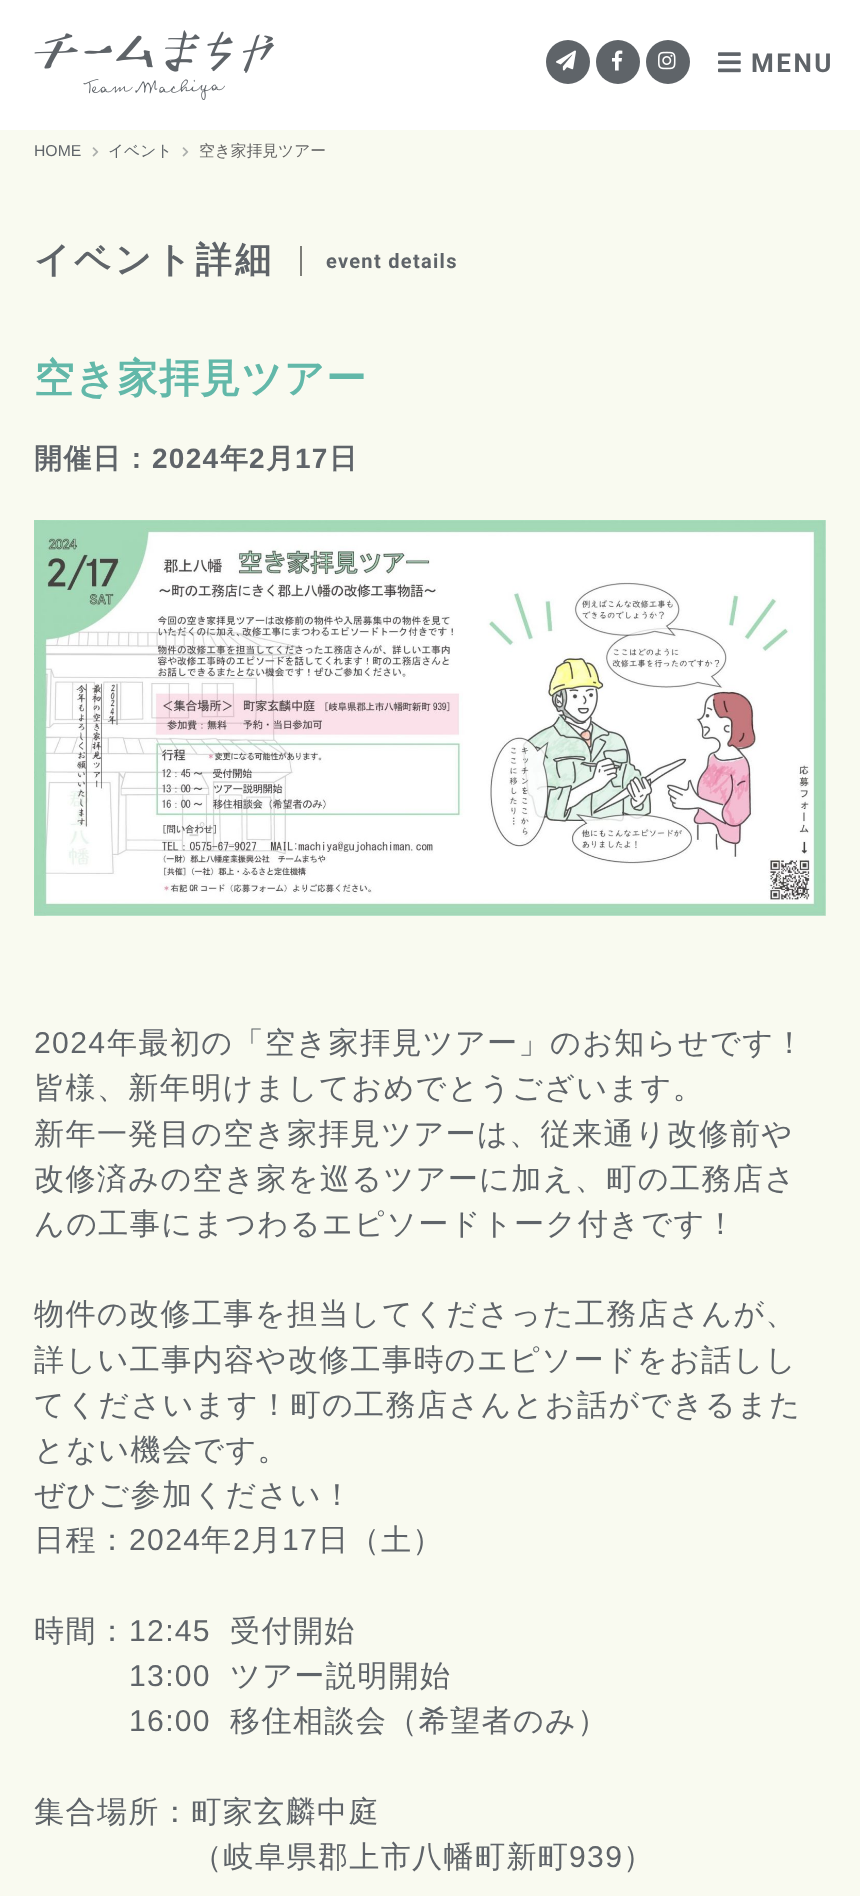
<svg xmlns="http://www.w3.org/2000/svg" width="860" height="1896">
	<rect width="100%" height="100%" fill="#FFFFFF" />
	<image x="34" y="30" width="240" height="70" href="assets/img1.png" />
	<circle cx="568" cy="62" r="22" fill="#5F6469" />
	<image x="556" y="50" width="20" height="21" href="assets/img2.png" />
	<circle cx="618" cy="62" r="22" fill="#5F6469" />
	<image x="612" y="50" width="11" height="21" href="assets/img3.png" />
	<circle cx="668" cy="62" r="22" fill="#5F6469" />
	<image x="658" y="51" width="18" height="19" href="assets/img4.png" />
	<image x="718" y="52" width="23" height="21" href="assets/img5.png" />
	<text x="751" y="72" font-family="Roboto" font-size="26" font-weight="700" letter-spacing="2.5" fill="#5F6469">MENU</text>
	<rect x="0" y="130" width="860" height="1766" fill="#F9FAF0" />
	<text x="34" y="156" font-family="Liberation Sans" font-size="15.75" fill="#5F6469">HOME</text>
	<image x="92" y="147" width="7" height="10" href="assets/img6.png" />
	<text x="108" y="156" font-family="WenQuanYi Zen Hei" font-size="15.75" font-weight="500" fill="#5F6469">イベント</text>
	<image x="182" y="147" width="7" height="10" href="assets/img6.png" />
	<text x="199" y="156" font-family="WenQuanYi Zen Hei" font-size="15.75" font-weight="500" fill="#666666">空き家拝見ツアー</text>
	<text x="34" y="272" font-family="WenQuanYi Zen Hei" font-size="36" font-weight="700" letter-spacing="3.5" fill="#5F6469">イベント詳細</text>
	<rect x="300" y="246" width="2" height="30" fill="#7D7D78" />
	<text x="326" y="268" font-family="Roboto" font-size="20" font-weight="700" letter-spacing="1.3" fill="#5F6469">event details</text>
	<text x="34" y="392" font-family="WenQuanYi Zen Hei" font-size="40" font-weight="700" letter-spacing="1.3" fill="#62B8A9">空き家拝見ツアー</text>
	<text x="34" y="468" font-family="WenQuanYi Zen Hei" font-size="28" font-weight="700" letter-spacing="1.3" fill="#5F6469">開催日：</text>
	<text x="152" y="468" font-family="Liberation Sans" font-size="28" font-weight="700" letter-spacing="1.3" fill="#5F6469">2024</text>
	<text x="220" y="468" font-family="WenQuanYi Zen Hei" font-size="28" font-weight="700" letter-spacing="1.3" fill="#5F6469">年</text>
	<text x="249" y="468" font-family="Liberation Sans" font-size="28" font-weight="700" letter-spacing="1.3" fill="#5F6469">2</text>
	<text x="266" y="468" font-family="WenQuanYi Zen Hei" font-size="28" font-weight="700" letter-spacing="1.3" fill="#5F6469">月</text>
	<text x="295" y="468" font-family="Liberation Sans" font-size="28" font-weight="700" letter-spacing="1.3" fill="#5F6469">17</text>
	<text x="329" y="468" font-family="WenQuanYi Zen Hei" font-size="28" font-weight="700" letter-spacing="1.3" fill="#5F6469">日</text>
	<image x="34" y="520" width="792" height="396" href="assets/img7.png" />
	<text x="34" y="1053" font-family="Liberation Sans" font-size="30.15" letter-spacing="1.3" fill="#5F6469">2024</text>
	<g font-family="WenQuanYi Zen Hei" font-size="30.15" font-weight="500" letter-spacing="1.3" fill="#5F6469">
		<text x="107" y="1053">年最初の「空き家拝見ツアー」のお知らせです！</text>
		<text x="34" y="1098">皆様、新年明けましておめでとうございます。</text>
		<text x="34" y="1144">新年一発目の空き家拝見ツアーは、従来通り改修前や</text>
		<text x="34" y="1189">改修済みの空き家を巡るツアーに加え、町の工務店さ</text>
		<text x="34" y="1234">んの工事にまつわるエピソードトーク付きです！</text>
		<text x="34" y="1324">物件の改修工事を担当してくださった工務店さんが、</text>
		<text x="34" y="1370">詳しい工事内容や改修工事時のエピソードをお話しし</text>
		<text x="34" y="1415">てくださいます！町の工務店さんとお話ができるまた</text>
		<text x="34" y="1460">とない機会です。</text>
		<text x="34" y="1505">ぜひご参加ください！</text>
		<text x="34" y="1550">日程：</text>
	</g>
	<text x="129" y="1550" font-family="Liberation Sans" font-size="30.15" letter-spacing="1.3" fill="#5F6469">2024</text>
	<text x="201" y="1550" font-family="WenQuanYi Zen Hei" font-size="30.15" font-weight="500" letter-spacing="1.3" fill="#5F6469">年</text>
	<text x="233" y="1550" font-family="Liberation Sans" font-size="30.15" letter-spacing="1.3" fill="#5F6469">2</text>
	<text x="251" y="1550" font-family="WenQuanYi Zen Hei" font-size="30.15" font-weight="500" letter-spacing="1.3" fill="#5F6469">月</text>
	<text x="282" y="1550" font-family="Liberation Sans" font-size="30.15" letter-spacing="1.3" fill="#5F6469">17</text>
	<g font-family="WenQuanYi Zen Hei" font-size="30.15" font-weight="500" letter-spacing="1.3" fill="#5F6469">
		<text x="318" y="1550">日（土）</text>
		<text x="34" y="1641">時間：</text>
	</g>
	<text x="129" y="1641" font-family="Liberation Sans" font-size="30.15" letter-spacing="1.3" fill="#5F6469">12:45</text>
	<text x="230" y="1641" font-family="WenQuanYi Zen Hei" font-size="30.15" font-weight="500" letter-spacing="1.3" fill="#5F6469">受付開始</text>
	<text x="129" y="1686" font-family="Liberation Sans" font-size="30.15" letter-spacing="1.3" fill="#5F6469">13:00</text>
	<text x="230" y="1686" font-family="WenQuanYi Zen Hei" font-size="30.15" font-weight="500" letter-spacing="1.3" fill="#5F6469">ツアー説明開始</text>
	<text x="129" y="1731" font-family="Liberation Sans" font-size="30.15" letter-spacing="1.3" fill="#5F6469">16:00</text>
	<g font-family="WenQuanYi Zen Hei" font-size="30.15" font-weight="500" letter-spacing="1.3" fill="#5F6469">
		<text x="230" y="1731">移住相談会（希望者のみ）</text>
		<text x="34" y="1822">集合場所：町家玄麟中庭</text>
		<text x="192" y="1867">（岐阜県郡上市八幡町新町</text>
	</g>
	<text x="569" y="1867" font-family="Liberation Sans" font-size="30.15" letter-spacing="1.3" fill="#5F6469">939</text>
	<text x="623" y="1867" font-family="WenQuanYi Zen Hei" font-size="30.15" font-weight="500" letter-spacing="1.3" fill="#5F6469">）</text>
</svg>
